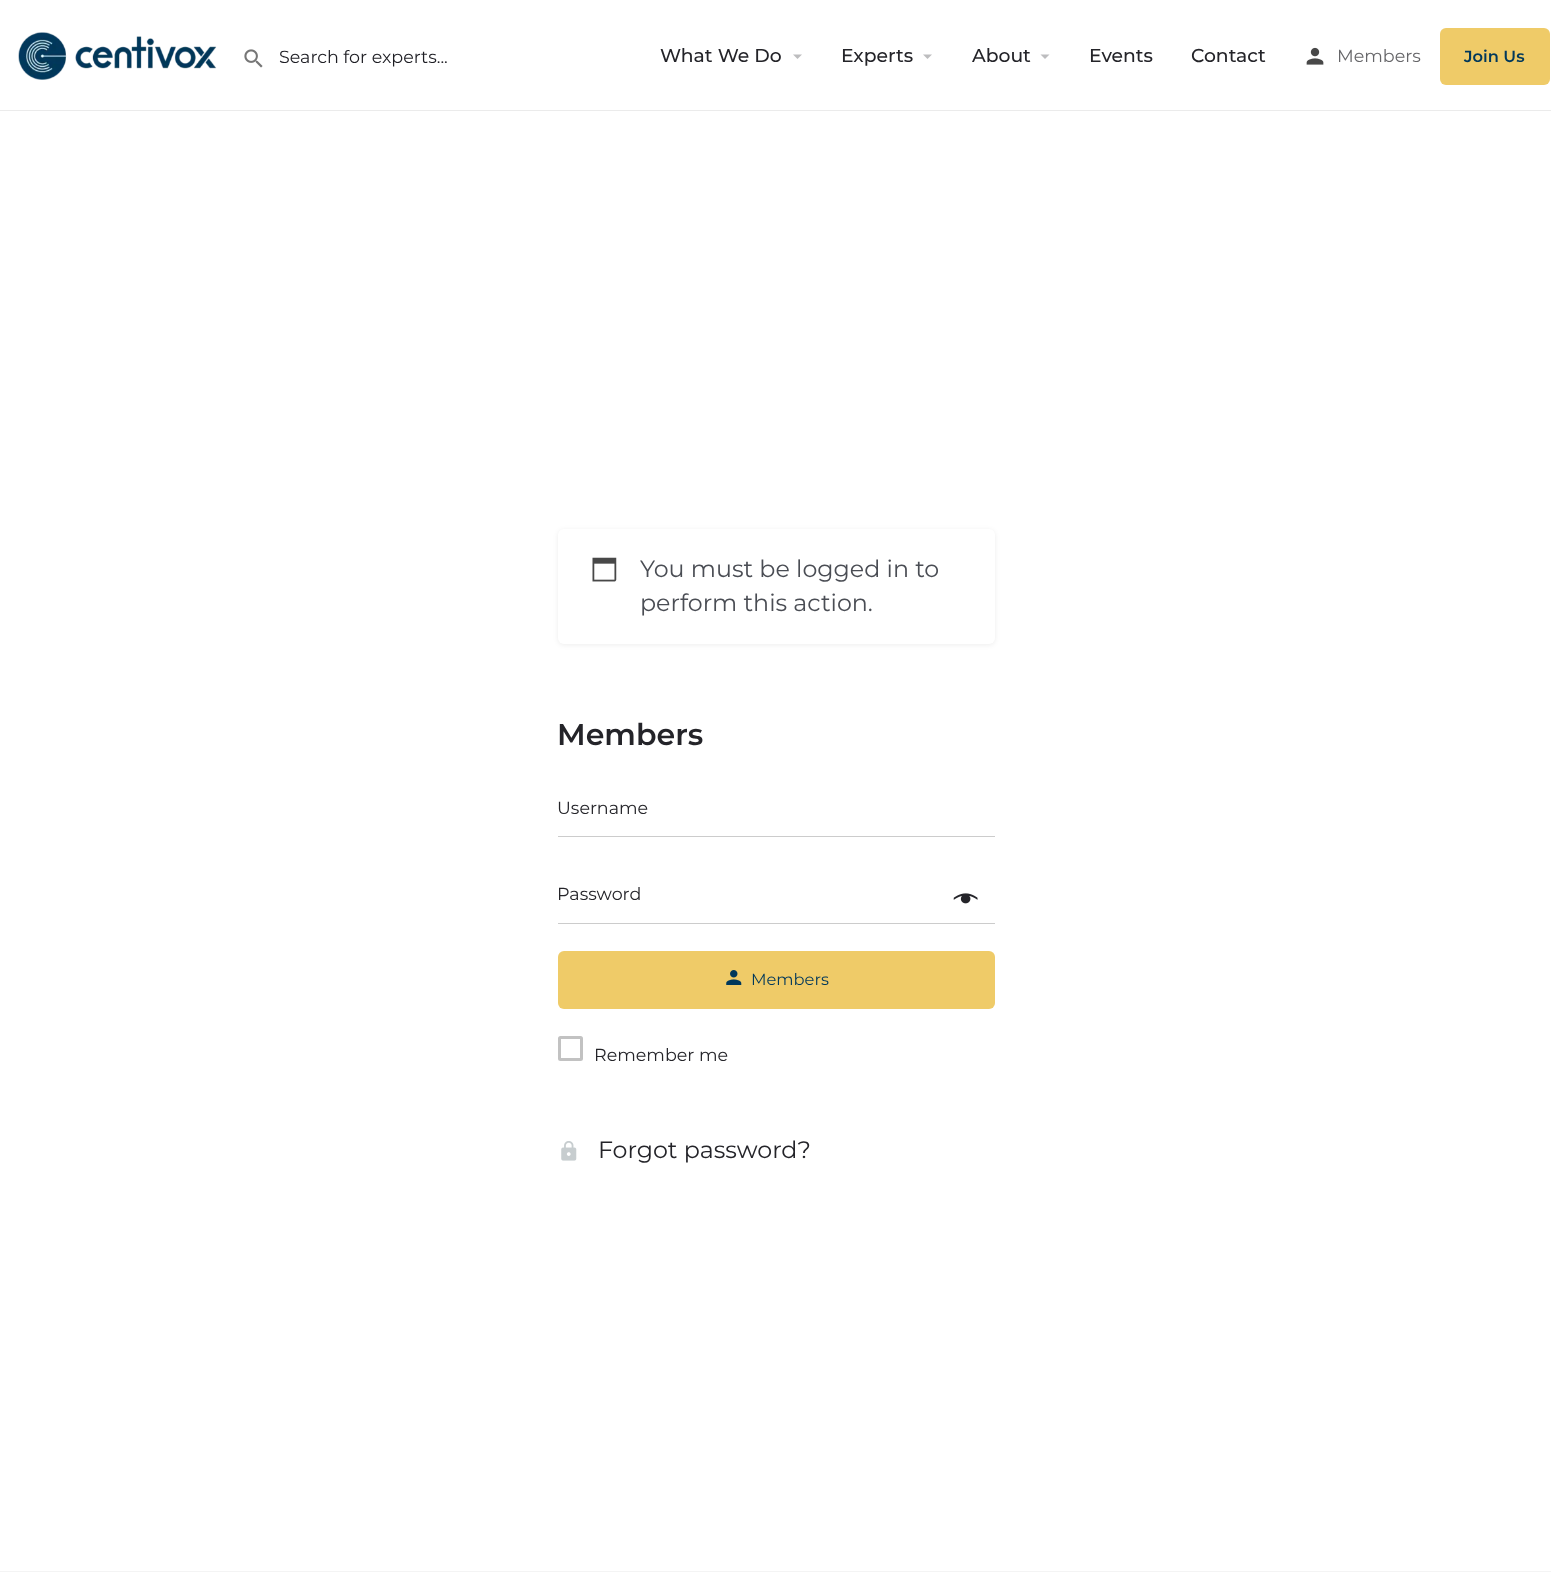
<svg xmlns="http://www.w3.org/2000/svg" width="1551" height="1572">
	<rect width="100%" height="100%" fill="#F4F4F4" />
	<rect x="0" y="0" width="1551" height="110" fill="#FFFFFF" />
	<rect x="0" y="110" width="1551" height="1" fill="#EBEBEB" />
	<image x="18" y="32" width="199" height="48" href="assets/img1.png" />
	<image x="244" y="49" width="19" height="19" href="assets/img2.png" />
	<text x="279" y="63" font-family="Montserrat" font-size="17.5" fill="#1D1D23">Search for experts...</text>
	<text x="660" y="62" font-family="Montserrat" font-size="18.75" font-weight="500" fill="#242429">What We Do</text>
	<path d="M793 54.5H802L797.5 59Z" fill="#BDBDBF" />
	<text x="841" y="62" font-family="Montserrat" font-size="18.75" font-weight="500" fill="#242429">Experts</text>
	<path d="M923 54.5H932L927.5 59Z" fill="#BDBDBF" />
	<text x="972" y="62" font-family="Montserrat" font-size="18.75" font-weight="500" fill="#242429">About</text>
	<path d="M1040.5 54.5H1049.5L1045 59Z" fill="#BDBDBF" />
	<g font-family="Montserrat" font-size="18.75" font-weight="500" fill="#242429">
		<text x="1089" y="62">Events</text>
		<text x="1191" y="62">Contact</text>
	</g>
	<image x="1306" y="47" width="18" height="18" href="assets/img3.png" />
	<text x="1337" y="62" font-family="Montserrat" font-size="17.5" fill="#666669">Members</text>
	<rect x="1440" y="28" width="110" height="57" rx="6" fill="#EFCB68" />
	<text x="1464" y="62" font-family="Montserrat" font-size="16.25" font-weight="600" fill="#00385B">Join Us</text>
	<rect x="0" y="111" width="1551" height="1460" fill="#FFFFFF" />
	<rect x="558" y="530" width="437" height="115" rx="6" fill="#000000" fill-opacity="0.07" filter="blur(2.5px)" />
	<rect x="558" y="529" width="437" height="115" rx="6" fill="#FFFFFF" />
	<image x="592" y="557" width="25" height="25" href="assets/img4.png" />
	<g font-family="Montserrat" font-size="23.75" fill="#4A4D54">
		<text x="640" y="577">You must be logged in to</text>
		<text x="640" y="611">perform this action.</text>
	</g>
	<text x="557" y="745" font-family="Montserrat" font-size="30" font-weight="600" fill="#242429">Members</text>
	<text x="557" y="814" font-family="Montserrat" font-size="17.5" fill="#242429">Username</text>
	<rect x="558" y="836" width="437" height="1" fill="#CCCCCC" />
	<text x="557" y="900" font-family="Montserrat" font-size="17.5" fill="#242429">Password</text>
	<rect x="558" y="923" width="437" height="1" fill="#CCCCCC" />
	<image x="953" y="893" width="25" height="11" href="assets/img5.png" />
	<rect x="558" y="951" width="437" height="58" rx="6" fill="#EFCB68" />
	<image x="726" y="970" width="16" height="15" href="assets/img6.png" />
	<text x="751" y="985" font-family="Montserrat" font-size="16.25" fill="#00385B">Members</text>
	<rect x="559.5" y="1037.5" width="22" height="22" rx="1" fill="none" stroke="#C2C2C2" stroke-width="3" />
	<text x="594" y="1061" font-family="Montserrat" font-size="17.5" fill="#242429">Remember me</text>
	<image x="561" y="1141" width="16" height="20" href="assets/img7.png" />
	<text x="598" y="1158" font-family="Montserrat" font-size="23.75" fill="#242429">Forgot password?</text>
</svg>
